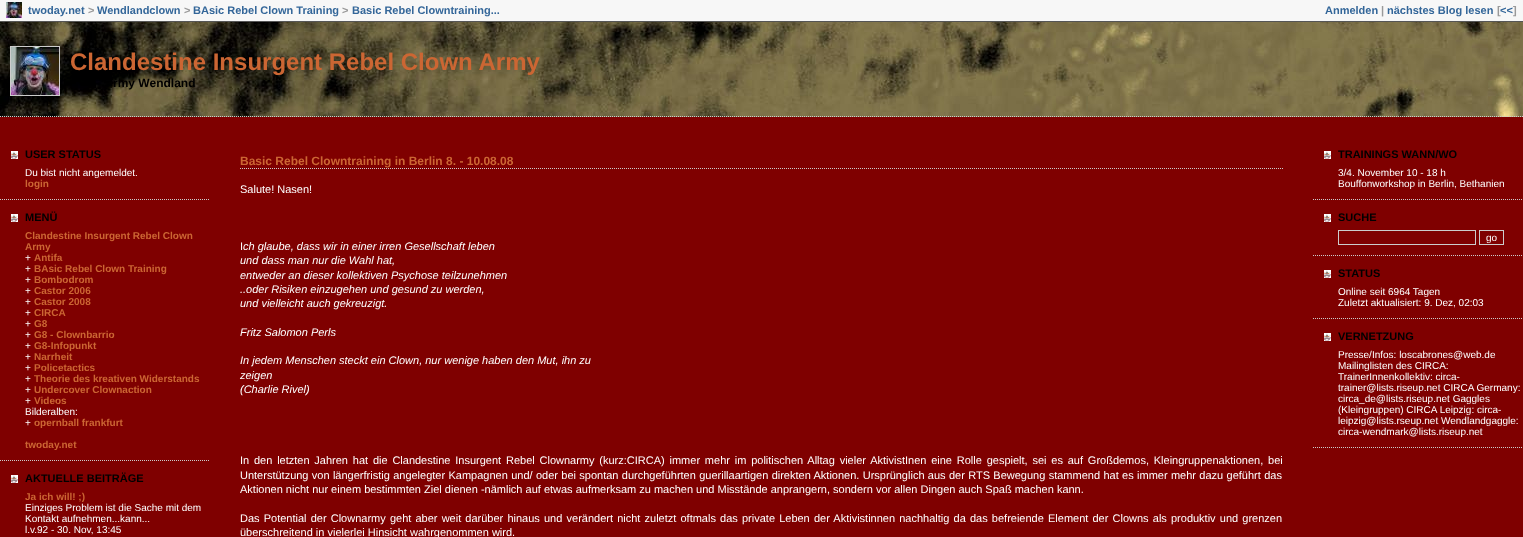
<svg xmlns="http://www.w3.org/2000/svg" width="1523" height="537">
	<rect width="100%" height="100%" fill="#7F0000" />
	<rect x="0" y="0" width="1523" height="21" fill="#F7F7F7" />
	<rect x="0" y="21" width="1523" height="1" fill="#555555" />
	<image x="6" y="2" width="16" height="16" href="assets/img1.png" />
	<text x="28" y="14" font-family="Liberation Sans" font-size="11" font-weight="700" fill="#336699">twoday.net</text>
	<text x="88" y="14" font-family="Liberation Sans" font-size="11" font-weight="700" fill="#999999">&gt;</text>
	<text x="97" y="14" font-family="Liberation Sans" font-size="11" font-weight="700" fill="#336699">Wendlandclown</text>
	<text x="184" y="14" font-family="Liberation Sans" font-size="11" font-weight="700" fill="#999999">&gt;</text>
	<text x="193" y="14" font-family="Liberation Sans" font-size="11" font-weight="700" fill="#336699">BAsic Rebel Clown Training</text>
	<text x="342" y="14" font-family="Liberation Sans" font-size="11" font-weight="700" fill="#999999">&gt;</text>
	<g font-family="Liberation Sans" font-size="11" font-weight="700" fill="#336699">
		<text x="352" y="14">Basic Rebel Clowntraining...</text>
		<text x="1325" y="14">Anmelden</text>
	</g>
	<text x="1381" y="14" font-family="Liberation Sans" font-size="11" font-weight="700" fill="#999999">|</text>
	<text x="1387" y="14" font-family="Liberation Sans" font-size="11" font-weight="700" fill="#336699">nächstes Blog lesen</text>
	<text x="1497" y="14" font-family="Liberation Sans" font-size="11" font-weight="700" fill="#999999">[</text>
	<text x="1500" y="14" font-family="Liberation Sans" font-size="11" font-weight="700" fill="#336699">&lt;&lt;</text>
	<text x="1513" y="14" font-family="Liberation Sans" font-size="11" font-weight="700" fill="#999999">]</text>
	<image x="0" y="22" width="1523" height="95" href="assets/img2.png" />
	<path d="M0 116.5H1523" fill="none" stroke="#CCCCCC" stroke-dasharray="1 1" />
	<rect x="10.5" y="46.5" width="49" height="49" fill="none" stroke="#CCCCCC" />
	<image x="11" y="47" width="48" height="48" href="assets/img3.png" />
	<text x="70" y="70" font-family="Liberation Sans" font-size="24" font-weight="700" fill="#CC6633">Clandestine Insurgent Rebel Clown Army</text>
	<text x="113" y="87" font-family="Liberation Sans" font-size="12" font-weight="700" fill="#000000">rmy Wendland</text>
	<image x="11" y="151" width="7" height="8" href="assets/img4.png" />
	<path d="M0 199.5H210" fill="none" stroke="#CCCCCC" stroke-dasharray="1 1" />
	<text x="25" y="158" font-family="Liberation Sans" font-size="11" font-weight="700" fill="#000000">USER STATUS</text>
	<text x="25" y="176" font-family="Liberation Sans" font-size="10" fill="#FFFFFF">Du bist nicht angemeldet.</text>
	<text x="25" y="187" font-family="Liberation Sans" font-size="10" font-weight="700" fill="#CC6633">login</text>
	<image x="11" y="214" width="7" height="8" href="assets/img4.png" />
	<path d="M0 460.5H210" fill="none" stroke="#CCCCCC" stroke-dasharray="1 1" />
	<text x="25" y="221" font-family="Liberation Sans" font-size="11" font-weight="700" fill="#000000">MENÜ</text>
	<g font-family="Liberation Sans" font-size="10" font-weight="700" fill="#CC6633">
		<text x="25" y="239">Clandestine Insurgent Rebel Clown</text>
		<text x="25" y="250">Army</text>
	</g>
	<text x="25" y="261" font-family="Liberation Sans" font-size="10" fill="#FFFFFF">+</text>
	<text x="34" y="261" font-family="Liberation Sans" font-size="10" font-weight="700" fill="#CC6633">Antifa</text>
	<text x="25" y="272" font-family="Liberation Sans" font-size="10" fill="#FFFFFF">+</text>
	<text x="34" y="272" font-family="Liberation Sans" font-size="10" font-weight="700" fill="#CC6633">BAsic Rebel Clown Training</text>
	<text x="25" y="283" font-family="Liberation Sans" font-size="10" fill="#FFFFFF">+</text>
	<text x="34" y="283" font-family="Liberation Sans" font-size="10" font-weight="700" fill="#CC6633">Bombodrom</text>
	<text x="25" y="294" font-family="Liberation Sans" font-size="10" fill="#FFFFFF">+</text>
	<text x="34" y="294" font-family="Liberation Sans" font-size="10" font-weight="700" fill="#CC6633">Castor 2006</text>
	<text x="25" y="305" font-family="Liberation Sans" font-size="10" fill="#FFFFFF">+</text>
	<text x="34" y="305" font-family="Liberation Sans" font-size="10" font-weight="700" fill="#CC6633">Castor 2008</text>
	<text x="25" y="316" font-family="Liberation Sans" font-size="10" fill="#FFFFFF">+</text>
	<text x="34" y="316" font-family="Liberation Sans" font-size="10" font-weight="700" fill="#CC6633">CIRCA</text>
	<text x="25" y="327" font-family="Liberation Sans" font-size="10" fill="#FFFFFF">+</text>
	<text x="34" y="327" font-family="Liberation Sans" font-size="10" font-weight="700" fill="#CC6633">G8</text>
	<text x="25" y="338" font-family="Liberation Sans" font-size="10" fill="#FFFFFF">+</text>
	<text x="34" y="338" font-family="Liberation Sans" font-size="10" font-weight="700" fill="#CC6633">G8 - Clownbarrio</text>
	<text x="25" y="349" font-family="Liberation Sans" font-size="10" fill="#FFFFFF">+</text>
	<text x="34" y="349" font-family="Liberation Sans" font-size="10" font-weight="700" fill="#CC6633">G8-Infopunkt</text>
	<text x="25" y="360" font-family="Liberation Sans" font-size="10" fill="#FFFFFF">+</text>
	<text x="34" y="360" font-family="Liberation Sans" font-size="10" font-weight="700" fill="#CC6633">Narrheit</text>
	<text x="25" y="371" font-family="Liberation Sans" font-size="10" fill="#FFFFFF">+</text>
	<text x="34" y="371" font-family="Liberation Sans" font-size="10" font-weight="700" fill="#CC6633">Policetactics</text>
	<text x="25" y="382" font-family="Liberation Sans" font-size="10" fill="#FFFFFF">+</text>
	<text x="34" y="382" font-family="Liberation Sans" font-size="10" font-weight="700" fill="#CC6633">Theorie des kreativen Widerstands</text>
	<text x="25" y="393" font-family="Liberation Sans" font-size="10" fill="#FFFFFF">+</text>
	<text x="34" y="393" font-family="Liberation Sans" font-size="10" font-weight="700" fill="#CC6633">Undercover Clownaction</text>
	<text x="25" y="404" font-family="Liberation Sans" font-size="10" fill="#FFFFFF">+</text>
	<text x="34" y="404" font-family="Liberation Sans" font-size="10" font-weight="700" fill="#CC6633">Videos</text>
	<g font-family="Liberation Sans" font-size="10" fill="#FFFFFF">
		<text x="25" y="415">Bilderalben:</text>
		<text x="25" y="426">+</text>
	</g>
	<g font-family="Liberation Sans" font-size="10" font-weight="700" fill="#CC6633">
		<text x="34" y="426">opernball frankfurt</text>
		<text x="25" y="448">twoday.net</text>
	</g>
	<image x="11" y="475" width="7" height="8" href="assets/img4.png" />
	<text x="25" y="482" font-family="Liberation Sans" font-size="11" font-weight="700" fill="#000000">AKTUELLE BEITRÄGE</text>
	<text x="25" y="500" font-family="Liberation Sans" font-size="10" font-weight="700" fill="#CC6633">Ja ich will! ;)</text>
	<g font-family="Liberation Sans" font-size="10" fill="#FFFFFF">
		<text x="25" y="511">Einziges Problem ist die Sache mit dem</text>
		<text x="25" y="522">Kontakt aufnehmen...kann...</text>
		<text x="25" y="533">l.v.92 - 30. Nov, 13:45</text>
	</g>
	<path d="M240 168.5H1283" fill="none" stroke="#CCCCCC" stroke-dasharray="1 1" />
	<text x="240" y="165" font-family="Liberation Sans" font-size="12" font-weight="700" fill="#CC6633">Basic Rebel Clowntraining in Berlin 8. - 10.08.08</text>
	<g font-family="Liberation Sans" font-size="11" fill="#FFFFFF">
		<text x="240" y="193">Salute! Nasen!</text>
		<text x="240" y="250">I</text>
	</g>
	<g font-family="Liberation Sans" font-size="11" font-style="italic" fill="#FFFFFF">
		<text x="243" y="250">ch glaube, dass wir in einer irren Gesellschaft leben</text>
		<text x="240" y="264">und dass man nur die Wahl hat,</text>
		<text x="240" y="279">entweder an dieser kollektiven Psychose teilzunehmen</text>
		<text x="240" y="293">..oder Risiken einzugehen und gesund zu werden,</text>
		<text x="240" y="307">und vielleicht auch gekreuzigt.</text>
		<text x="240" y="336">Fritz Salomon Perls</text>
		<text x="240" y="364">In jedem Menschen steckt ein Clown, nur wenige haben den Mut, ihn zu</text>
		<text x="240" y="379">zeigen</text>
		<text x="240" y="393">(Charlie Rivel)</text>
	</g>
	<g font-family="Liberation Sans" font-size="11" fill="#FFFFFF">
		<text x="240" y="464" word-spacing="1.75">In den letzten Jahren hat die Clandestine Insurgent Rebel Clownarmy (kurz:CIRCA) immer mehr im politischen Alltag vieler AktivistInen eine Rolle gespielt, sei es auf Großdemos, Kleingruppenaktionen, bei</text>
		<text x="240" y="479" word-spacing="0.3">Unterstützung von längerfristig angelegter Kampagnen und/ oder bei spontan durchgeführten guerillaartigen direkten Aktionen. Ursprünglich aus der RTS Bewegung stammend hat es immer mehr dazu geführt das</text>
		<text x="240" y="493">Aktionen nicht nur einem bestimmten Ziel dienen -nämlich auf etwas aufmerksam zu machen und Misstände anprangern, sondern vor allen Dingen auch Spaß machen kann.</text>
		<text x="240" y="522" word-spacing="1.1">Das Potential der Clownarmy geht aber weit darüber hinaus und verändert nicht zuletzt oftmals das private Leben der Aktivistinnen nachhaltig da das befreiende Element der Clowns als produktiv und grenzen</text>
		<text x="240" y="536">überschreitend in vielerlei Hinsicht wahrgenommen wird.</text>
	</g>
	<image x="1324" y="151" width="7" height="8" href="assets/img4.png" />
	<path d="M1313 199.5H1523" fill="none" stroke="#CCCCCC" stroke-dasharray="1 1" />
	<text x="1338" y="158" font-family="Liberation Sans" font-size="11" font-weight="700" fill="#000000">TRAININGS WANN/WO</text>
	<g font-family="Liberation Sans" font-size="10" fill="#FFFFFF">
		<text x="1338" y="176">3/4. November 10 - 18 h</text>
		<text x="1338" y="187">Bouffonworkshop in Berlin, Bethanien</text>
	</g>
	<image x="1324" y="214" width="7" height="8" href="assets/img4.png" />
	<path d="M1313 255.5H1523" fill="none" stroke="#CCCCCC" stroke-dasharray="1 1" />
	<text x="1338" y="221" font-family="Liberation Sans" font-size="11" font-weight="700" fill="#000000">SUCHE</text>
	<rect x="1338.5" y="230.5" width="137" height="14" fill="none" stroke="#CCCCCC" />
	<rect x="1479.5" y="230.5" width="24" height="14" fill="none" stroke="#CCCCCC" />
	<text x="1486" y="241" font-family="Liberation Sans" font-size="10" fill="#FFFFFF">go</text>
	<image x="1324" y="270" width="7" height="8" href="assets/img4.png" />
	<path d="M1313 318.5H1523" fill="none" stroke="#CCCCCC" stroke-dasharray="1 1" />
	<text x="1338" y="277" font-family="Liberation Sans" font-size="11" font-weight="700" fill="#000000">STATUS</text>
	<g font-family="Liberation Sans" font-size="10" fill="#FFFFFF">
		<text x="1338" y="295">Online seit 6964 Tagen</text>
		<text x="1338" y="306">Zuletzt aktualisiert: 9. Dez, 02:03</text>
	</g>
	<image x="1324" y="333" width="7" height="8" href="assets/img4.png" />
	<path d="M1313 447.5H1523" fill="none" stroke="#CCCCCC" stroke-dasharray="1 1" />
	<text x="1338" y="340" font-family="Liberation Sans" font-size="11" font-weight="700" fill="#000000">VERNETZUNG</text>
	<g font-family="Liberation Sans" font-size="10" fill="#FFFFFF">
		<text x="1338" y="358">Presse/Infos: loscabrones@web.de</text>
		<text x="1338" y="369">Mailinglisten des CIRCA:</text>
		<text x="1338" y="380">TrainerInnenkollektiv: circa-</text>
		<text x="1338" y="391">trainer@lists.riseup.net CIRCA Germany:</text>
		<text x="1338" y="402">circa_de@lists.riseup.net Gaggles</text>
		<text x="1338" y="413">(Kleingruppen) CIRCA Leipzig: circa-</text>
		<text x="1338" y="424">leipzig@lists.rseup.net Wendlandgaggle:</text>
		<text x="1338" y="435">circa-wendmark@lists.riseup.net</text>
	</g>
</svg>
